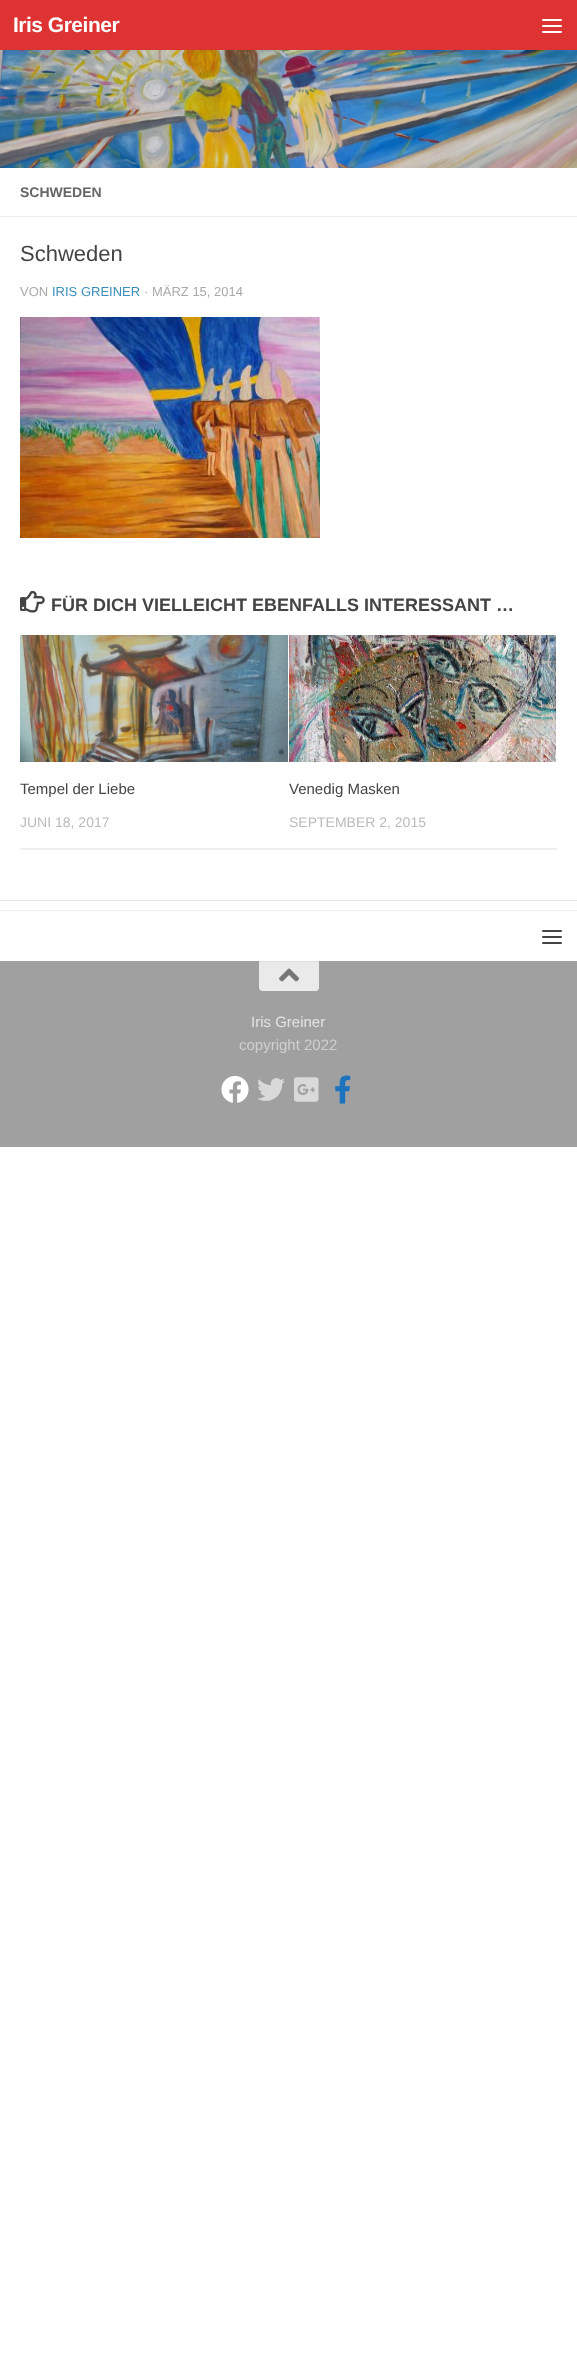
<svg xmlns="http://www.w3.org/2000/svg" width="577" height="2358">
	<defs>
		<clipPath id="clip1"><rect x="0" y="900" width="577" height="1" /></clipPath>
	</defs>
	<rect width="100%" height="100%" fill="#FFFFFF" />
	<rect x="0" y="0" width="577" height="50" fill="#DD3333" />
	<text x="13" y="32" font-family="Liberation Sans" font-size="21" font-weight="700" letter-spacing="-0.5" fill="#FFFFFF">Iris Greiner</text>
	<rect x="542" y="19" width="20" height="2" rx="1" fill="#FFFFFF" />
	<rect x="542" y="25" width="20" height="2" rx="1" fill="#FFFFFF" />
	<rect x="542" y="31" width="20" height="2" rx="1" fill="#FFFFFF" />
	<g clip-path="url(#clip1)">
		<rect x="0" y="169" width="577" height="732" fill="#000000" fill-opacity="0.1" filter="blur(0.5px)" />
	</g>
	<image x="0" y="50" width="577" height="118" href="assets/img1.png" />
	<rect x="0" y="216" width="577" height="1" fill="#EEEEEE" />
	<text x="20" y="197" font-family="Liberation Sans" font-size="14" font-weight="700" fill="#666666">SCHWEDEN</text>
	<text x="20" y="261" font-family="Liberation Sans" font-size="22" fill="#444444">Schweden</text>
	<text x="20" y="296" font-family="Liberation Sans" font-size="13" fill="#AAAAAA">VON</text>
	<text x="52" y="296" font-family="Liberation Sans" font-size="13" fill="#3B8DBD">IRIS GREINER</text>
	<text x="144" y="296" font-family="Liberation Sans" font-size="13" fill="#AAAAAA">· MÄRZ 15, 2014</text>
	<image x="20" y="317" width="300" height="221" href="assets/img2.png" />
	<image x="20" y="590" width="25" height="23" href="assets/img3.png" />
	<text x="51" y="611" font-family="Liberation Sans" font-size="18" font-weight="700" fill="#444444">FÜR DICH VIELLEICHT EBENFALLS INTERESSANT …</text>
	<rect x="20" y="848" width="537" height="2" fill="#EEEEEE" />
	<image x="20" y="635" width="268" height="127" href="assets/img4.png" />
	<text x="20" y="794" font-family="Liberation Sans" font-size="15" fill="#444444">Tempel der Liebe</text>
	<text x="20" y="827" font-family="Liberation Sans" font-size="14" fill="#BBBBBB">JUNI 18, 2017</text>
	<image x="289" y="635" width="267" height="127" href="assets/img5.png" />
	<text x="289" y="794" font-family="Liberation Sans" font-size="15" fill="#444444">Venedig Masken</text>
	<text x="289" y="827" font-family="Liberation Sans" font-size="14" fill="#BBBBBB">SEPTEMBER 2, 2015</text>
	<rect x="0" y="910" width="577" height="1" fill="#EEEEEE" />
	<rect x="542" y="930" width="20" height="2" rx="1" fill="#444444" />
	<rect x="542" y="936" width="20" height="2" rx="1" fill="#444444" />
	<rect x="542" y="942" width="20" height="2" rx="1" fill="#444444" />
	<rect x="0" y="961" width="577" height="186" fill="#A0A0A0" />
	<path d="M259 961H319V988C319 989.5 317.5 991 316 991H262C260.5 991 259 989.5 259 988Z" fill="#EAEAEA" />
	<rect x="259" y="961" width="60" height="1" fill="#DEDEDE" />
	<image x="279" y="968" width="20" height="14" href="assets/img6.png" />
	<text x="251" y="1027" font-family="Liberation Sans" font-size="15" fill="#E3E3E3">Iris Greiner</text>
	<text x="239" y="1050" font-family="Liberation Sans" font-size="15" fill="#D0D0D0">copyright 2022</text>
	<image x="221" y="1076" width="28" height="27" href="assets/img7.png" />
	<image x="257" y="1078" width="28" height="23" href="assets/img8.png" />
	<image x="294" y="1077" width="25" height="25" href="assets/img9.png" />
	<image x="335" y="1075" width="16" height="29" href="assets/img10.png" />
</svg>
